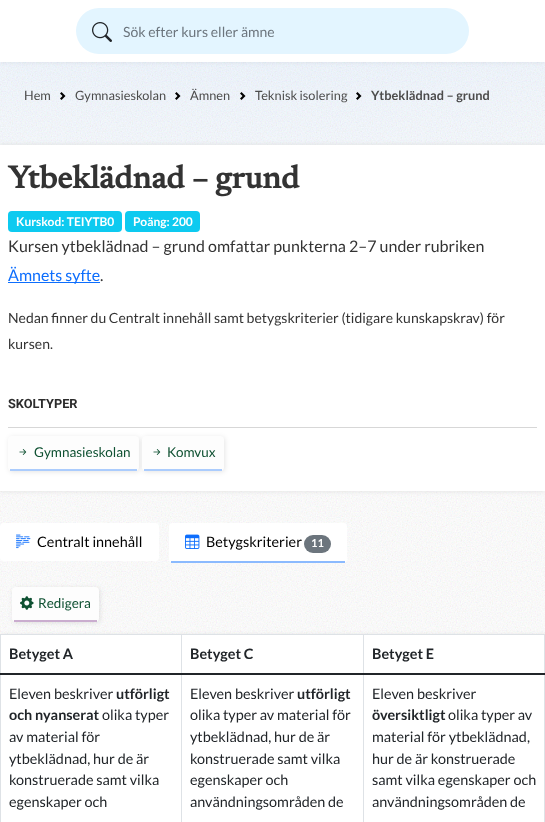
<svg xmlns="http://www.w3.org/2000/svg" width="545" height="822">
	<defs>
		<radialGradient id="g1" gradientUnits="userSpaceOnUse" cx="0" cy="0" r="1" gradientTransform="matrix(1200 0 0 600 273 -200)"><stop offset="0" stop-color="#DCECFF" /><stop offset="0.6" stop-color="#F7FBFF" /><stop offset="1" stop-color="#FFFFFF" /></radialGradient>
	</defs>
	<rect width="100%" height="100%" fill="#FFFFFF" />
	<rect x="0" y="62" width="545" height="263" fill="url(#g1)" />
	<image x="0" y="62" width="545" height="572" href="assets/img2.png" />
	<rect x="0" y="0" width="545" height="62" fill="#040404" fill-opacity="0.07" filter="blur(2.5px)" />
	<rect x="0" y="0" width="545" height="62" fill="#FFFFFF" />
	<rect x="76" y="8" width="393" height="46" rx="23" fill="#E3F5FF" />
	<image x="92" y="22" width="20" height="20" href="assets/img1.png" />
	<text x="123" y="37" font-family="Lato" font-size="14" fill="#6C757D">Sök efter kurs eller ämne</text>
	<text x="24" y="100" font-family="Lato" font-size="12.75" fill="#4C4C4C">Hem</text>
	<image x="60" y="92" width="6" height="8" href="assets/img3.png" />
	<text x="75" y="100" font-family="Lato" font-size="12.75" fill="#4C4C4C">Gymnasieskolan</text>
	<image x="175" y="92" width="6" height="8" href="assets/img4.png" />
	<text x="190" y="100" font-family="Lato" font-size="12.75" fill="#4C4C4C">Ämnen</text>
	<image x="240" y="92" width="6" height="8" href="assets/img5.png" />
	<text x="255" y="100" font-family="Lato" font-size="12.75" fill="#4C4C4C">Teknisk isolering</text>
	<image x="356" y="92" width="6" height="8" href="assets/img6.png" />
	<text x="371" y="100" font-family="Lato" font-size="12.75" font-weight="700" fill="#4C4C4C">Ytbeklädnad – grund</text>
	<rect x="0" y="145" width="545" height="346" fill="#DFDFDF" filter="blur(2.5px)" />
	<rect x="0" y="145" width="545" height="346" fill="#FFFFFF" />
	<text x="8" y="188" font-family="Newsreader" font-size="32" font-weight="700" fill="#333333">Ytbeklädnad – grund</text>
	<rect x="8" y="211" width="114" height="21" rx="4" fill="#0DCAF0" />
	<text x="16" y="226" font-family="Lato" font-size="12" font-weight="700" fill="#FFFFFF">Kurskod: TEIYTB0</text>
	<rect x="125" y="211" width="75" height="21" rx="4" fill="#0DCAF0" />
	<text x="133" y="226" font-family="Lato" font-size="12" font-weight="700" fill="#FFFFFF">Poäng: 200</text>
	<text x="8" y="252" font-family="Lato" font-size="16" fill="#333333">Kursen ytbeklädnad – grund omfattar punkterna 2–7 under rubriken</text>
	<rect x="8" y="282" width="92" height="1" fill="#0D6EFD" />
	<text x="8" y="281" font-family="Lato" font-size="16" fill="#0D6EFD">Ämnets syfte</text>
	<text x="100" y="281" font-family="Lato" font-size="16" fill="#333333">.</text>
	<g font-family="Lato" font-size="14" fill="#333333">
		<text x="8" y="323">Nedan finner du Centralt innehåll samt betygskriterier (tidigare kunskapskrav) för</text>
		<text x="8" y="349">kursen.</text>
	</g>
	<rect x="8" y="427" width="529" height="1" fill="#D7D7D7" />
	<text x="8" y="408" font-family="Roboto" font-size="12.75" font-weight="700" fill="#2C2C2C">SKOLTYPER</text>
	<rect x="9" y="437" width="131" height="35" rx="4" fill="#000000" fill-opacity="0.1" filter="blur(2.5px)" />
	<rect x="8" y="436" width="131" height="35" rx="4" fill="#FDFDFD" />
	<rect x="10" y="469" width="127" height="2" fill="#ABCCFD" />
	<image x="19" y="449" width="8" height="6" href="assets/img7.png" />
	<text x="34" y="457" font-family="Lato" font-size="13.5" fill="#0F5132">Gymnasieskolan</text>
	<rect x="143" y="437" width="82" height="35" rx="4" fill="#000000" fill-opacity="0.1" filter="blur(2.5px)" />
	<rect x="142" y="436" width="82" height="35" rx="4" fill="#FDFDFD" />
	<rect x="144" y="469" width="78" height="2" fill="#ABCCFD" />
	<image x="153" y="449" width="8" height="6" href="assets/img7.png" />
	<text x="167" y="457" font-family="Lato" font-size="13.5" fill="#0F5132">Komvux</text>
	<rect x="0" y="523" width="159" height="38" rx="4" fill="#FFFFFF" />
	<image x="16" y="534" width="15" height="15" href="assets/img8.png" />
	<text x="37" y="547" font-family="Lato" font-size="14.4" fill="#000000">Centralt innehåll</text>
	<rect x="169" y="523" width="178" height="40" rx="4" fill="#FFFFFF" />
	<rect x="171" y="561" width="174" height="2" fill="#0D6EFD" fill-opacity="0.48" />
	<image x="185" y="534" width="15" height="15" href="assets/img9.png" />
	<text x="206" y="547" font-family="Lato" font-size="14.4" fill="#000000">Betygskriterier</text>
	<rect x="304" y="535" width="27" height="18" rx="9" fill="#6C757D" />
	<text x="311" y="547" font-family="Lato" font-size="11" font-weight="700" fill="#FFFFFF">11</text>
	<rect x="13" y="588" width="87" height="35" rx="4" fill="#000000" fill-opacity="0.1" filter="blur(2.5px)" />
	<rect x="12" y="587" width="87" height="35" rx="4" fill="#FDFDFD" />
	<rect x="14" y="620" width="83" height="2" fill="#CAADCF" />
	<image x="20" y="596" width="14" height="14" href="assets/img10.png" />
	<text x="38" y="608" font-family="Lato" font-size="13.5" fill="#0F5132">Redigera</text>
	<rect x="1" y="635" width="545" height="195" fill="#000000" fill-opacity="0.1" filter="blur(2.5px)" />
	<rect x="1" y="635" width="543" height="187" fill="#FFFFFF" />
	<rect x="0" y="634" width="545" height="1" fill="#DEE2E6" />
	<g font-family="Lato" font-size="14.4" font-weight="700" fill="#212529">
		<text x="9" y="659">Betyget A</text>
		<text x="190" y="659">Betyget C</text>
		<text x="372" y="659">Betyget E</text>
	</g>
	<rect x="181" y="634" width="1" height="188" fill="#DEE2E6" />
	<rect x="0" y="634" width="1" height="188" fill="#DEE2E6" />
	<rect x="363" y="634" width="1" height="188" fill="#DEE2E6" />
	<rect x="544" y="634" width="1" height="188" fill="#DEE2E6" />
	<rect x="0" y="673" width="545" height="2" fill="#212529" />
	<text x="9" y="699" font-family="Lato" font-size="14.4" fill="#212529">Eleven beskriver</text>
	<g font-family="Lato" font-size="14.4" font-weight="700" fill="#212529">
		<text x="116" y="699">utförligt</text>
		<text x="9" y="720">och nyanserat</text>
	</g>
	<g font-family="Lato" font-size="14.4" fill="#212529">
		<text x="102" y="720">olika typer</text>
		<text x="9" y="742">av material för</text>
		<text x="9" y="764">ytbeklädnad, hur de är</text>
		<text x="9" y="785">konstruerade samt vilka</text>
		<text x="9" y="807">egenskaper och</text>
		<text x="190" y="699">Eleven beskriver</text>
	</g>
	<text x="297" y="699" font-family="Lato" font-size="14.4" font-weight="700" fill="#212529">utförligt</text>
	<g font-family="Lato" font-size="14.4" fill="#212529">
		<text x="190" y="720">olika typer av material för</text>
		<text x="190" y="742">ytbeklädnad, hur de är</text>
		<text x="190" y="764">konstruerade samt vilka</text>
		<text x="190" y="785">egenskaper och</text>
		<text x="190" y="807">användningsområden de</text>
		<text x="372" y="699">Eleven beskriver</text>
	</g>
	<text x="372" y="720" font-family="Lato" font-size="14.4" font-weight="700" fill="#212529">översiktligt</text>
	<g font-family="Lato" font-size="14.4" fill="#212529">
		<text x="448" y="720">olika typer av</text>
		<text x="372" y="742">material för ytbeklädnad,</text>
		<text x="372" y="764">hur de är konstruerade</text>
		<text x="372" y="785">samt vilka egenskaper och</text>
		<text x="372" y="807">användningsområden de</text>
	</g>
</svg>
